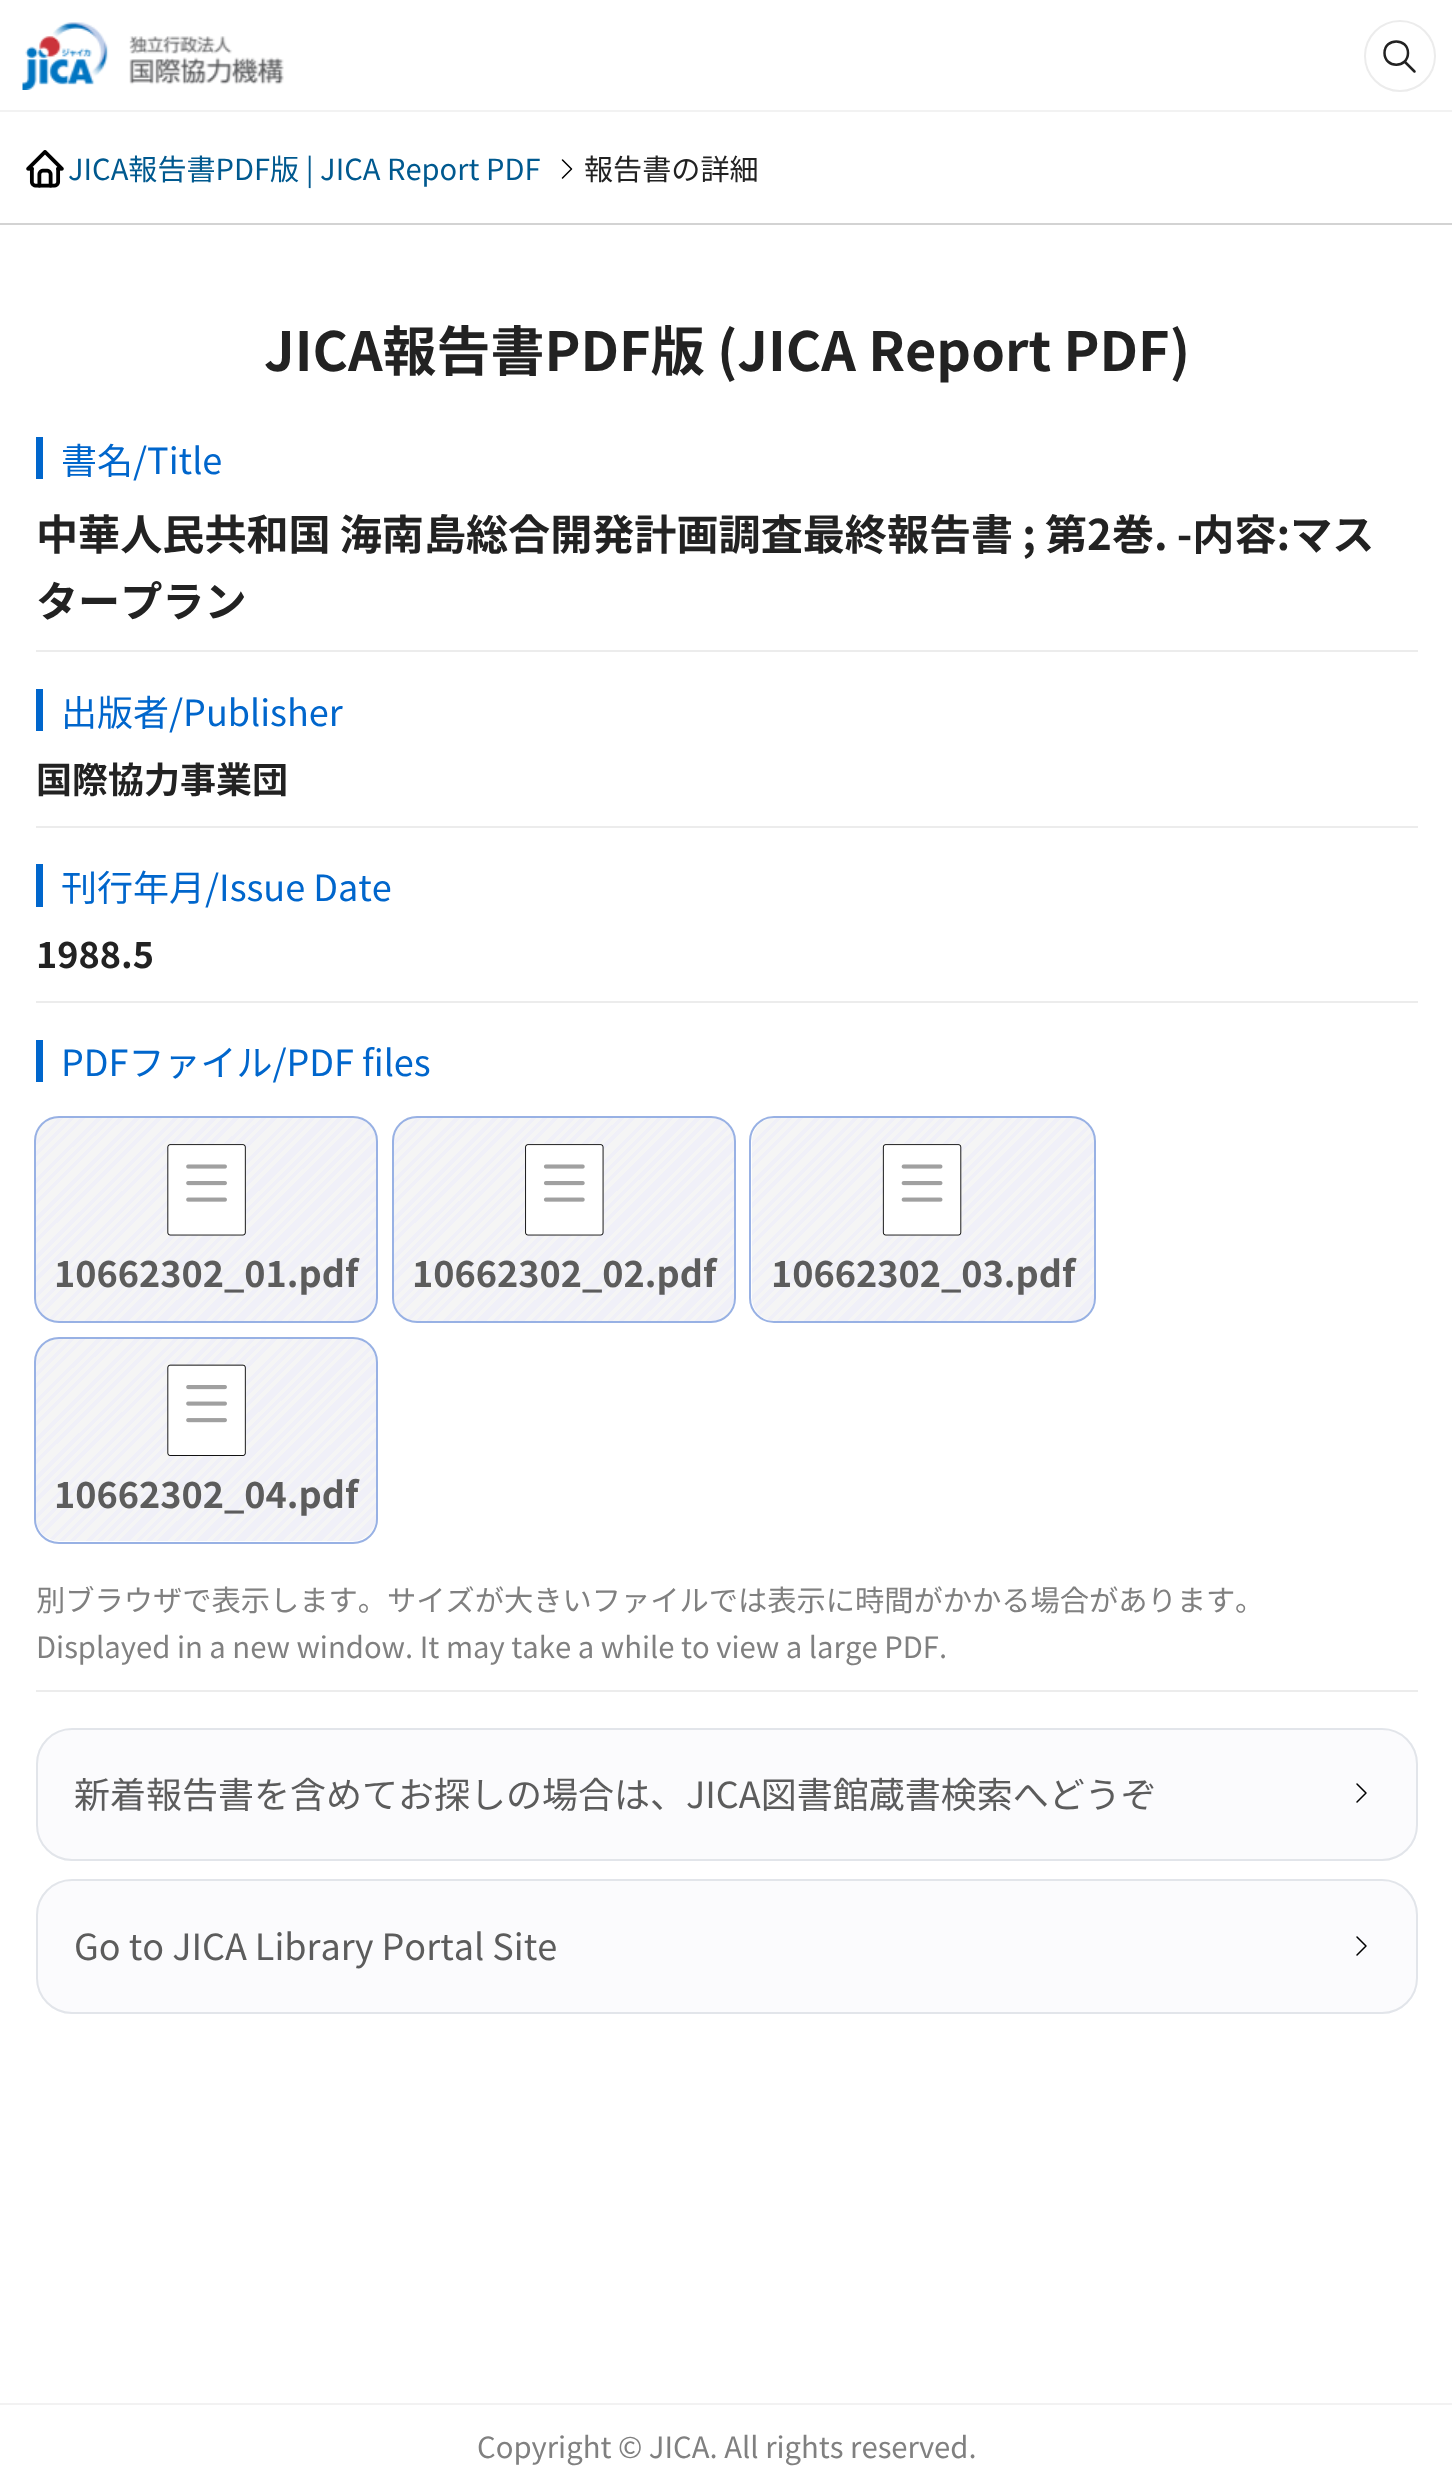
<svg xmlns="http://www.w3.org/2000/svg" width="1452" height="2491">
	<style>*{font-kerning:none!important;font-variant-ligatures:none!important}</style>
	<defs>
		<linearGradient id="g1" gradientUnits="userSpaceOnUse" x1="341" y1="1355" x2="68" y2="1081"><stop offset="0" stop-color="#F5F5F5" /><stop offset="0.01" stop-color="#F5F5F5" /><stop offset="0.01" stop-color="#F0F0F8" /><stop offset="0.02" stop-color="#F0F0F8" /><stop offset="0.02" stop-color="#F5F5F5" /><stop offset="0.03" stop-color="#F5F5F5" /><stop offset="0.03" stop-color="#F0F0F8" /><stop offset="0.05" stop-color="#F0F0F8" /><stop offset="0.05" stop-color="#F5F5F5" /><stop offset="0.06" stop-color="#F5F5F5" /><stop offset="0.06" stop-color="#F0F0F8" /><stop offset="0.07" stop-color="#F0F0F8" /><stop offset="0.07" stop-color="#F5F5F5" /><stop offset="0.08" stop-color="#F5F5F5" /><stop offset="0.08" stop-color="#F0F0F8" /><stop offset="0.09" stop-color="#F0F0F8" /><stop offset="0.09" stop-color="#F5F5F5" /><stop offset="0.1" stop-color="#F5F5F5" /><stop offset="0.1" stop-color="#F0F0F8" /><stop offset="0.12" stop-color="#F0F0F8" /><stop offset="0.12" stop-color="#F5F5F5" /><stop offset="0.13" stop-color="#F5F5F5" /><stop offset="0.13" stop-color="#F0F0F8" /><stop offset="0.14" stop-color="#F0F0F8" /><stop offset="0.14" stop-color="#F5F5F5" /><stop offset="0.15" stop-color="#F5F5F5" /><stop offset="0.15" stop-color="#F0F0F8" /><stop offset="0.16" stop-color="#F0F0F8" /><stop offset="0.16" stop-color="#F5F5F5" /><stop offset="0.17" stop-color="#F5F5F5" /><stop offset="0.17" stop-color="#F0F0F8" /><stop offset="0.19" stop-color="#F0F0F8" /><stop offset="0.19" stop-color="#F5F5F5" /><stop offset="0.2" stop-color="#F5F5F5" /><stop offset="0.2" stop-color="#F0F0F8" /><stop offset="0.21" stop-color="#F0F0F8" /><stop offset="0.21" stop-color="#F5F5F5" /><stop offset="0.22" stop-color="#F5F5F5" /><stop offset="0.22" stop-color="#F0F0F8" /><stop offset="0.23" stop-color="#F0F0F8" /><stop offset="0.23" stop-color="#F5F5F5" /><stop offset="0.24" stop-color="#F5F5F5" /><stop offset="0.24" stop-color="#F0F0F8" /><stop offset="0.26" stop-color="#F0F0F8" /><stop offset="0.26" stop-color="#F5F5F5" /><stop offset="0.27" stop-color="#F5F5F5" /><stop offset="0.27" stop-color="#F0F0F8" /><stop offset="0.28" stop-color="#F0F0F8" /><stop offset="0.28" stop-color="#F5F5F5" /><stop offset="0.29" stop-color="#F5F5F5" /><stop offset="0.29" stop-color="#F0F0F8" /><stop offset="0.3" stop-color="#F0F0F8" /><stop offset="0.3" stop-color="#F5F5F5" /><stop offset="0.31" stop-color="#F5F5F5" /><stop offset="0.31" stop-color="#F0F0F8" /><stop offset="0.33" stop-color="#F0F0F8" /><stop offset="0.33" stop-color="#F5F5F5" /><stop offset="0.34" stop-color="#F5F5F5" /><stop offset="0.34" stop-color="#F0F0F8" /><stop offset="0.35" stop-color="#F0F0F8" /><stop offset="0.35" stop-color="#F5F5F5" /><stop offset="0.36" stop-color="#F5F5F5" /><stop offset="0.36" stop-color="#F0F0F8" /><stop offset="0.37" stop-color="#F0F0F8" /><stop offset="0.37" stop-color="#F5F5F5" /><stop offset="0.38" stop-color="#F5F5F5" /><stop offset="0.38" stop-color="#F0F0F8" /><stop offset="0.4" stop-color="#F0F0F8" /><stop offset="0.4" stop-color="#F5F5F5" /><stop offset="0.41" stop-color="#F5F5F5" /><stop offset="0.41" stop-color="#F0F0F8" /><stop offset="0.42" stop-color="#F0F0F8" /><stop offset="0.42" stop-color="#F5F5F5" /><stop offset="0.43" stop-color="#F5F5F5" /><stop offset="0.43" stop-color="#F0F0F8" /><stop offset="0.44" stop-color="#F0F0F8" /><stop offset="0.44" stop-color="#F5F5F5" /><stop offset="0.45" stop-color="#F5F5F5" /><stop offset="0.45" stop-color="#F0F0F8" /><stop offset="0.47" stop-color="#F0F0F8" /><stop offset="0.47" stop-color="#F5F5F5" /><stop offset="0.48" stop-color="#F5F5F5" /><stop offset="0.48" stop-color="#F0F0F8" /><stop offset="0.49" stop-color="#F0F0F8" /><stop offset="0.49" stop-color="#F5F5F5" /><stop offset="0.5" stop-color="#F5F5F5" /><stop offset="0.5" stop-color="#F0F0F8" /><stop offset="0.51" stop-color="#F0F0F8" /><stop offset="0.51" stop-color="#F5F5F5" /><stop offset="0.52" stop-color="#F5F5F5" /><stop offset="0.52" stop-color="#F0F0F8" /><stop offset="0.53" stop-color="#F0F0F8" /><stop offset="0.53" stop-color="#F5F5F5" /><stop offset="0.55" stop-color="#F5F5F5" /><stop offset="0.55" stop-color="#F0F0F8" /><stop offset="0.56" stop-color="#F0F0F8" /><stop offset="0.56" stop-color="#F5F5F5" /><stop offset="0.57" stop-color="#F5F5F5" /><stop offset="0.57" stop-color="#F0F0F8" /><stop offset="0.58" stop-color="#F0F0F8" /><stop offset="0.58" stop-color="#F5F5F5" /><stop offset="0.59" stop-color="#F5F5F5" /><stop offset="0.59" stop-color="#F0F0F8" /><stop offset="0.6" stop-color="#F0F0F8" /><stop offset="0.6" stop-color="#F5F5F5" /><stop offset="0.62" stop-color="#F5F5F5" /><stop offset="0.62" stop-color="#F0F0F8" /><stop offset="0.63" stop-color="#F0F0F8" /><stop offset="0.63" stop-color="#F5F5F5" /><stop offset="0.64" stop-color="#F5F5F5" /><stop offset="0.64" stop-color="#F0F0F8" /><stop offset="0.65" stop-color="#F0F0F8" /><stop offset="0.65" stop-color="#F5F5F5" /><stop offset="0.66" stop-color="#F5F5F5" /><stop offset="0.66" stop-color="#F0F0F8" /><stop offset="0.67" stop-color="#F0F0F8" /><stop offset="0.67" stop-color="#F5F5F5" /><stop offset="0.69" stop-color="#F5F5F5" /><stop offset="0.69" stop-color="#F0F0F8" /><stop offset="0.7" stop-color="#F0F0F8" /><stop offset="0.7" stop-color="#F5F5F5" /><stop offset="0.71" stop-color="#F5F5F5" /><stop offset="0.71" stop-color="#F0F0F8" /><stop offset="0.72" stop-color="#F0F0F8" /><stop offset="0.72" stop-color="#F5F5F5" /><stop offset="0.73" stop-color="#F5F5F5" /><stop offset="0.73" stop-color="#F0F0F8" /><stop offset="0.74" stop-color="#F0F0F8" /><stop offset="0.74" stop-color="#F5F5F5" /><stop offset="0.76" stop-color="#F5F5F5" /><stop offset="0.76" stop-color="#F0F0F8" /><stop offset="0.77" stop-color="#F0F0F8" /><stop offset="0.77" stop-color="#F5F5F5" /><stop offset="0.78" stop-color="#F5F5F5" /><stop offset="0.78" stop-color="#F0F0F8" /><stop offset="0.79" stop-color="#F0F0F8" /><stop offset="0.79" stop-color="#F5F5F5" /><stop offset="0.8" stop-color="#F5F5F5" /><stop offset="0.8" stop-color="#F0F0F8" /><stop offset="0.81" stop-color="#F0F0F8" /><stop offset="0.81" stop-color="#F5F5F5" /><stop offset="0.83" stop-color="#F5F5F5" /><stop offset="0.83" stop-color="#F0F0F8" /><stop offset="0.84" stop-color="#F0F0F8" /><stop offset="0.84" stop-color="#F5F5F5" /><stop offset="0.85" stop-color="#F5F5F5" /><stop offset="0.85" stop-color="#F0F0F8" /><stop offset="0.86" stop-color="#F0F0F8" /><stop offset="0.86" stop-color="#F5F5F5" /><stop offset="0.87" stop-color="#F5F5F5" /><stop offset="0.87" stop-color="#F0F0F8" /><stop offset="0.88" stop-color="#F0F0F8" /><stop offset="0.88" stop-color="#F5F5F5" /><stop offset="0.9" stop-color="#F5F5F5" /><stop offset="0.9" stop-color="#F0F0F8" /><stop offset="0.91" stop-color="#F0F0F8" /><stop offset="0.91" stop-color="#F5F5F5" /><stop offset="0.92" stop-color="#F5F5F5" /><stop offset="0.92" stop-color="#F0F0F8" /><stop offset="0.93" stop-color="#F0F0F8" /><stop offset="0.93" stop-color="#F5F5F5" /><stop offset="0.94" stop-color="#F5F5F5" /><stop offset="0.94" stop-color="#F0F0F8" /><stop offset="0.95" stop-color="#F0F0F8" /><stop offset="0.95" stop-color="#F5F5F5" /><stop offset="0.97" stop-color="#F5F5F5" /><stop offset="0.97" stop-color="#F0F0F8" /><stop offset="0.98" stop-color="#F0F0F8" /><stop offset="0.98" stop-color="#F5F5F5" /><stop offset="0.99" stop-color="#F5F5F5" /><stop offset="0.99" stop-color="#F0F0F8" /><stop offset="1" stop-color="#F0F0F8" /></linearGradient>
		<linearGradient id="g2" gradientUnits="userSpaceOnUse" x1="699" y1="1355" x2="426" y2="1081"><stop offset="0" stop-color="#F5F5F5" /><stop offset="0.01" stop-color="#F5F5F5" /><stop offset="0.01" stop-color="#F0F0F8" /><stop offset="0.02" stop-color="#F0F0F8" /><stop offset="0.02" stop-color="#F5F5F5" /><stop offset="0.03" stop-color="#F5F5F5" /><stop offset="0.03" stop-color="#F0F0F8" /><stop offset="0.05" stop-color="#F0F0F8" /><stop offset="0.05" stop-color="#F5F5F5" /><stop offset="0.06" stop-color="#F5F5F5" /><stop offset="0.06" stop-color="#F0F0F8" /><stop offset="0.07" stop-color="#F0F0F8" /><stop offset="0.07" stop-color="#F5F5F5" /><stop offset="0.08" stop-color="#F5F5F5" /><stop offset="0.08" stop-color="#F0F0F8" /><stop offset="0.09" stop-color="#F0F0F8" /><stop offset="0.09" stop-color="#F5F5F5" /><stop offset="0.1" stop-color="#F5F5F5" /><stop offset="0.1" stop-color="#F0F0F8" /><stop offset="0.12" stop-color="#F0F0F8" /><stop offset="0.12" stop-color="#F5F5F5" /><stop offset="0.13" stop-color="#F5F5F5" /><stop offset="0.13" stop-color="#F0F0F8" /><stop offset="0.14" stop-color="#F0F0F8" /><stop offset="0.14" stop-color="#F5F5F5" /><stop offset="0.15" stop-color="#F5F5F5" /><stop offset="0.15" stop-color="#F0F0F8" /><stop offset="0.16" stop-color="#F0F0F8" /><stop offset="0.16" stop-color="#F5F5F5" /><stop offset="0.17" stop-color="#F5F5F5" /><stop offset="0.17" stop-color="#F0F0F8" /><stop offset="0.19" stop-color="#F0F0F8" /><stop offset="0.19" stop-color="#F5F5F5" /><stop offset="0.2" stop-color="#F5F5F5" /><stop offset="0.2" stop-color="#F0F0F8" /><stop offset="0.21" stop-color="#F0F0F8" /><stop offset="0.21" stop-color="#F5F5F5" /><stop offset="0.22" stop-color="#F5F5F5" /><stop offset="0.22" stop-color="#F0F0F8" /><stop offset="0.23" stop-color="#F0F0F8" /><stop offset="0.23" stop-color="#F5F5F5" /><stop offset="0.24" stop-color="#F5F5F5" /><stop offset="0.24" stop-color="#F0F0F8" /><stop offset="0.26" stop-color="#F0F0F8" /><stop offset="0.26" stop-color="#F5F5F5" /><stop offset="0.27" stop-color="#F5F5F5" /><stop offset="0.27" stop-color="#F0F0F8" /><stop offset="0.28" stop-color="#F0F0F8" /><stop offset="0.28" stop-color="#F5F5F5" /><stop offset="0.29" stop-color="#F5F5F5" /><stop offset="0.29" stop-color="#F0F0F8" /><stop offset="0.3" stop-color="#F0F0F8" /><stop offset="0.3" stop-color="#F5F5F5" /><stop offset="0.31" stop-color="#F5F5F5" /><stop offset="0.31" stop-color="#F0F0F8" /><stop offset="0.33" stop-color="#F0F0F8" /><stop offset="0.33" stop-color="#F5F5F5" /><stop offset="0.34" stop-color="#F5F5F5" /><stop offset="0.34" stop-color="#F0F0F8" /><stop offset="0.35" stop-color="#F0F0F8" /><stop offset="0.35" stop-color="#F5F5F5" /><stop offset="0.36" stop-color="#F5F5F5" /><stop offset="0.36" stop-color="#F0F0F8" /><stop offset="0.37" stop-color="#F0F0F8" /><stop offset="0.37" stop-color="#F5F5F5" /><stop offset="0.38" stop-color="#F5F5F5" /><stop offset="0.38" stop-color="#F0F0F8" /><stop offset="0.4" stop-color="#F0F0F8" /><stop offset="0.4" stop-color="#F5F5F5" /><stop offset="0.41" stop-color="#F5F5F5" /><stop offset="0.41" stop-color="#F0F0F8" /><stop offset="0.42" stop-color="#F0F0F8" /><stop offset="0.42" stop-color="#F5F5F5" /><stop offset="0.43" stop-color="#F5F5F5" /><stop offset="0.43" stop-color="#F0F0F8" /><stop offset="0.44" stop-color="#F0F0F8" /><stop offset="0.44" stop-color="#F5F5F5" /><stop offset="0.45" stop-color="#F5F5F5" /><stop offset="0.45" stop-color="#F0F0F8" /><stop offset="0.47" stop-color="#F0F0F8" /><stop offset="0.47" stop-color="#F5F5F5" /><stop offset="0.48" stop-color="#F5F5F5" /><stop offset="0.48" stop-color="#F0F0F8" /><stop offset="0.49" stop-color="#F0F0F8" /><stop offset="0.49" stop-color="#F5F5F5" /><stop offset="0.5" stop-color="#F5F5F5" /><stop offset="0.5" stop-color="#F0F0F8" /><stop offset="0.51" stop-color="#F0F0F8" /><stop offset="0.51" stop-color="#F5F5F5" /><stop offset="0.52" stop-color="#F5F5F5" /><stop offset="0.52" stop-color="#F0F0F8" /><stop offset="0.53" stop-color="#F0F0F8" /><stop offset="0.53" stop-color="#F5F5F5" /><stop offset="0.55" stop-color="#F5F5F5" /><stop offset="0.55" stop-color="#F0F0F8" /><stop offset="0.56" stop-color="#F0F0F8" /><stop offset="0.56" stop-color="#F5F5F5" /><stop offset="0.57" stop-color="#F5F5F5" /><stop offset="0.57" stop-color="#F0F0F8" /><stop offset="0.58" stop-color="#F0F0F8" /><stop offset="0.58" stop-color="#F5F5F5" /><stop offset="0.59" stop-color="#F5F5F5" /><stop offset="0.59" stop-color="#F0F0F8" /><stop offset="0.6" stop-color="#F0F0F8" /><stop offset="0.6" stop-color="#F5F5F5" /><stop offset="0.62" stop-color="#F5F5F5" /><stop offset="0.62" stop-color="#F0F0F8" /><stop offset="0.63" stop-color="#F0F0F8" /><stop offset="0.63" stop-color="#F5F5F5" /><stop offset="0.64" stop-color="#F5F5F5" /><stop offset="0.64" stop-color="#F0F0F8" /><stop offset="0.65" stop-color="#F0F0F8" /><stop offset="0.65" stop-color="#F5F5F5" /><stop offset="0.66" stop-color="#F5F5F5" /><stop offset="0.66" stop-color="#F0F0F8" /><stop offset="0.67" stop-color="#F0F0F8" /><stop offset="0.67" stop-color="#F5F5F5" /><stop offset="0.69" stop-color="#F5F5F5" /><stop offset="0.69" stop-color="#F0F0F8" /><stop offset="0.7" stop-color="#F0F0F8" /><stop offset="0.7" stop-color="#F5F5F5" /><stop offset="0.71" stop-color="#F5F5F5" /><stop offset="0.71" stop-color="#F0F0F8" /><stop offset="0.72" stop-color="#F0F0F8" /><stop offset="0.72" stop-color="#F5F5F5" /><stop offset="0.73" stop-color="#F5F5F5" /><stop offset="0.73" stop-color="#F0F0F8" /><stop offset="0.74" stop-color="#F0F0F8" /><stop offset="0.74" stop-color="#F5F5F5" /><stop offset="0.76" stop-color="#F5F5F5" /><stop offset="0.76" stop-color="#F0F0F8" /><stop offset="0.77" stop-color="#F0F0F8" /><stop offset="0.77" stop-color="#F5F5F5" /><stop offset="0.78" stop-color="#F5F5F5" /><stop offset="0.78" stop-color="#F0F0F8" /><stop offset="0.79" stop-color="#F0F0F8" /><stop offset="0.79" stop-color="#F5F5F5" /><stop offset="0.8" stop-color="#F5F5F5" /><stop offset="0.8" stop-color="#F0F0F8" /><stop offset="0.81" stop-color="#F0F0F8" /><stop offset="0.81" stop-color="#F5F5F5" /><stop offset="0.83" stop-color="#F5F5F5" /><stop offset="0.83" stop-color="#F0F0F8" /><stop offset="0.84" stop-color="#F0F0F8" /><stop offset="0.84" stop-color="#F5F5F5" /><stop offset="0.85" stop-color="#F5F5F5" /><stop offset="0.85" stop-color="#F0F0F8" /><stop offset="0.86" stop-color="#F0F0F8" /><stop offset="0.86" stop-color="#F5F5F5" /><stop offset="0.87" stop-color="#F5F5F5" /><stop offset="0.87" stop-color="#F0F0F8" /><stop offset="0.88" stop-color="#F0F0F8" /><stop offset="0.88" stop-color="#F5F5F5" /><stop offset="0.9" stop-color="#F5F5F5" /><stop offset="0.9" stop-color="#F0F0F8" /><stop offset="0.91" stop-color="#F0F0F8" /><stop offset="0.91" stop-color="#F5F5F5" /><stop offset="0.92" stop-color="#F5F5F5" /><stop offset="0.92" stop-color="#F0F0F8" /><stop offset="0.93" stop-color="#F0F0F8" /><stop offset="0.93" stop-color="#F5F5F5" /><stop offset="0.94" stop-color="#F5F5F5" /><stop offset="0.94" stop-color="#F0F0F8" /><stop offset="0.95" stop-color="#F0F0F8" /><stop offset="0.95" stop-color="#F5F5F5" /><stop offset="0.97" stop-color="#F5F5F5" /><stop offset="0.97" stop-color="#F0F0F8" /><stop offset="0.98" stop-color="#F0F0F8" /><stop offset="0.98" stop-color="#F5F5F5" /><stop offset="0.99" stop-color="#F5F5F5" /><stop offset="0.99" stop-color="#F0F0F8" /><stop offset="1" stop-color="#F0F0F8" /></linearGradient>
		<linearGradient id="g3" gradientUnits="userSpaceOnUse" x1="1059" y1="1356" x2="785" y2="1082"><stop offset="0" stop-color="#F5F5F5" /><stop offset="0.01" stop-color="#F5F5F5" /><stop offset="0.01" stop-color="#F0F0F8" /><stop offset="0.02" stop-color="#F0F0F8" /><stop offset="0.02" stop-color="#F5F5F5" /><stop offset="0.03" stop-color="#F5F5F5" /><stop offset="0.03" stop-color="#F0F0F8" /><stop offset="0.05" stop-color="#F0F0F8" /><stop offset="0.05" stop-color="#F5F5F5" /><stop offset="0.06" stop-color="#F5F5F5" /><stop offset="0.06" stop-color="#F0F0F8" /><stop offset="0.07" stop-color="#F0F0F8" /><stop offset="0.07" stop-color="#F5F5F5" /><stop offset="0.08" stop-color="#F5F5F5" /><stop offset="0.08" stop-color="#F0F0F8" /><stop offset="0.09" stop-color="#F0F0F8" /><stop offset="0.09" stop-color="#F5F5F5" /><stop offset="0.1" stop-color="#F5F5F5" /><stop offset="0.1" stop-color="#F0F0F8" /><stop offset="0.12" stop-color="#F0F0F8" /><stop offset="0.12" stop-color="#F5F5F5" /><stop offset="0.13" stop-color="#F5F5F5" /><stop offset="0.13" stop-color="#F0F0F8" /><stop offset="0.14" stop-color="#F0F0F8" /><stop offset="0.14" stop-color="#F5F5F5" /><stop offset="0.15" stop-color="#F5F5F5" /><stop offset="0.15" stop-color="#F0F0F8" /><stop offset="0.16" stop-color="#F0F0F8" /><stop offset="0.16" stop-color="#F5F5F5" /><stop offset="0.17" stop-color="#F5F5F5" /><stop offset="0.17" stop-color="#F0F0F8" /><stop offset="0.19" stop-color="#F0F0F8" /><stop offset="0.19" stop-color="#F5F5F5" /><stop offset="0.2" stop-color="#F5F5F5" /><stop offset="0.2" stop-color="#F0F0F8" /><stop offset="0.21" stop-color="#F0F0F8" /><stop offset="0.21" stop-color="#F5F5F5" /><stop offset="0.22" stop-color="#F5F5F5" /><stop offset="0.22" stop-color="#F0F0F8" /><stop offset="0.23" stop-color="#F0F0F8" /><stop offset="0.23" stop-color="#F5F5F5" /><stop offset="0.24" stop-color="#F5F5F5" /><stop offset="0.24" stop-color="#F0F0F8" /><stop offset="0.26" stop-color="#F0F0F8" /><stop offset="0.26" stop-color="#F5F5F5" /><stop offset="0.27" stop-color="#F5F5F5" /><stop offset="0.27" stop-color="#F0F0F8" /><stop offset="0.28" stop-color="#F0F0F8" /><stop offset="0.28" stop-color="#F5F5F5" /><stop offset="0.29" stop-color="#F5F5F5" /><stop offset="0.29" stop-color="#F0F0F8" /><stop offset="0.3" stop-color="#F0F0F8" /><stop offset="0.3" stop-color="#F5F5F5" /><stop offset="0.31" stop-color="#F5F5F5" /><stop offset="0.31" stop-color="#F0F0F8" /><stop offset="0.33" stop-color="#F0F0F8" /><stop offset="0.33" stop-color="#F5F5F5" /><stop offset="0.34" stop-color="#F5F5F5" /><stop offset="0.34" stop-color="#F0F0F8" /><stop offset="0.35" stop-color="#F0F0F8" /><stop offset="0.35" stop-color="#F5F5F5" /><stop offset="0.36" stop-color="#F5F5F5" /><stop offset="0.36" stop-color="#F0F0F8" /><stop offset="0.37" stop-color="#F0F0F8" /><stop offset="0.37" stop-color="#F5F5F5" /><stop offset="0.38" stop-color="#F5F5F5" /><stop offset="0.38" stop-color="#F0F0F8" /><stop offset="0.4" stop-color="#F0F0F8" /><stop offset="0.4" stop-color="#F5F5F5" /><stop offset="0.41" stop-color="#F5F5F5" /><stop offset="0.41" stop-color="#F0F0F8" /><stop offset="0.42" stop-color="#F0F0F8" /><stop offset="0.42" stop-color="#F5F5F5" /><stop offset="0.43" stop-color="#F5F5F5" /><stop offset="0.43" stop-color="#F0F0F8" /><stop offset="0.44" stop-color="#F0F0F8" /><stop offset="0.44" stop-color="#F5F5F5" /><stop offset="0.45" stop-color="#F5F5F5" /><stop offset="0.45" stop-color="#F0F0F8" /><stop offset="0.47" stop-color="#F0F0F8" /><stop offset="0.47" stop-color="#F5F5F5" /><stop offset="0.48" stop-color="#F5F5F5" /><stop offset="0.48" stop-color="#F0F0F8" /><stop offset="0.49" stop-color="#F0F0F8" /><stop offset="0.49" stop-color="#F5F5F5" /><stop offset="0.5" stop-color="#F5F5F5" /><stop offset="0.5" stop-color="#F0F0F8" /><stop offset="0.51" stop-color="#F0F0F8" /><stop offset="0.51" stop-color="#F5F5F5" /><stop offset="0.52" stop-color="#F5F5F5" /><stop offset="0.52" stop-color="#F0F0F8" /><stop offset="0.53" stop-color="#F0F0F8" /><stop offset="0.53" stop-color="#F5F5F5" /><stop offset="0.55" stop-color="#F5F5F5" /><stop offset="0.55" stop-color="#F0F0F8" /><stop offset="0.56" stop-color="#F0F0F8" /><stop offset="0.56" stop-color="#F5F5F5" /><stop offset="0.57" stop-color="#F5F5F5" /><stop offset="0.57" stop-color="#F0F0F8" /><stop offset="0.58" stop-color="#F0F0F8" /><stop offset="0.58" stop-color="#F5F5F5" /><stop offset="0.59" stop-color="#F5F5F5" /><stop offset="0.59" stop-color="#F0F0F8" /><stop offset="0.6" stop-color="#F0F0F8" /><stop offset="0.6" stop-color="#F5F5F5" /><stop offset="0.62" stop-color="#F5F5F5" /><stop offset="0.62" stop-color="#F0F0F8" /><stop offset="0.63" stop-color="#F0F0F8" /><stop offset="0.63" stop-color="#F5F5F5" /><stop offset="0.64" stop-color="#F5F5F5" /><stop offset="0.64" stop-color="#F0F0F8" /><stop offset="0.65" stop-color="#F0F0F8" /><stop offset="0.65" stop-color="#F5F5F5" /><stop offset="0.66" stop-color="#F5F5F5" /><stop offset="0.66" stop-color="#F0F0F8" /><stop offset="0.67" stop-color="#F0F0F8" /><stop offset="0.67" stop-color="#F5F5F5" /><stop offset="0.69" stop-color="#F5F5F5" /><stop offset="0.69" stop-color="#F0F0F8" /><stop offset="0.7" stop-color="#F0F0F8" /><stop offset="0.7" stop-color="#F5F5F5" /><stop offset="0.71" stop-color="#F5F5F5" /><stop offset="0.71" stop-color="#F0F0F8" /><stop offset="0.72" stop-color="#F0F0F8" /><stop offset="0.72" stop-color="#F5F5F5" /><stop offset="0.73" stop-color="#F5F5F5" /><stop offset="0.73" stop-color="#F0F0F8" /><stop offset="0.74" stop-color="#F0F0F8" /><stop offset="0.74" stop-color="#F5F5F5" /><stop offset="0.76" stop-color="#F5F5F5" /><stop offset="0.76" stop-color="#F0F0F8" /><stop offset="0.77" stop-color="#F0F0F8" /><stop offset="0.77" stop-color="#F5F5F5" /><stop offset="0.78" stop-color="#F5F5F5" /><stop offset="0.78" stop-color="#F0F0F8" /><stop offset="0.79" stop-color="#F0F0F8" /><stop offset="0.79" stop-color="#F5F5F5" /><stop offset="0.8" stop-color="#F5F5F5" /><stop offset="0.8" stop-color="#F0F0F8" /><stop offset="0.81" stop-color="#F0F0F8" /><stop offset="0.81" stop-color="#F5F5F5" /><stop offset="0.83" stop-color="#F5F5F5" /><stop offset="0.83" stop-color="#F0F0F8" /><stop offset="0.84" stop-color="#F0F0F8" /><stop offset="0.84" stop-color="#F5F5F5" /><stop offset="0.85" stop-color="#F5F5F5" /><stop offset="0.85" stop-color="#F0F0F8" /><stop offset="0.86" stop-color="#F0F0F8" /><stop offset="0.86" stop-color="#F5F5F5" /><stop offset="0.87" stop-color="#F5F5F5" /><stop offset="0.87" stop-color="#F0F0F8" /><stop offset="0.88" stop-color="#F0F0F8" /><stop offset="0.88" stop-color="#F5F5F5" /><stop offset="0.9" stop-color="#F5F5F5" /><stop offset="0.9" stop-color="#F0F0F8" /><stop offset="0.91" stop-color="#F0F0F8" /><stop offset="0.91" stop-color="#F5F5F5" /><stop offset="0.92" stop-color="#F5F5F5" /><stop offset="0.92" stop-color="#F0F0F8" /><stop offset="0.93" stop-color="#F0F0F8" /><stop offset="0.93" stop-color="#F5F5F5" /><stop offset="0.94" stop-color="#F5F5F5" /><stop offset="0.94" stop-color="#F0F0F8" /><stop offset="0.95" stop-color="#F0F0F8" /><stop offset="0.95" stop-color="#F5F5F5" /><stop offset="0.97" stop-color="#F5F5F5" /><stop offset="0.97" stop-color="#F0F0F8" /><stop offset="0.98" stop-color="#F0F0F8" /><stop offset="0.98" stop-color="#F5F5F5" /><stop offset="0.99" stop-color="#F5F5F5" /><stop offset="0.99" stop-color="#F0F0F8" /><stop offset="1" stop-color="#F0F0F8" /></linearGradient>
		<linearGradient id="g4" gradientUnits="userSpaceOnUse" x1="341" y1="1576" x2="68" y2="1302"><stop offset="0" stop-color="#F5F5F5" /><stop offset="0.01" stop-color="#F5F5F5" /><stop offset="0.01" stop-color="#F0F0F8" /><stop offset="0.02" stop-color="#F0F0F8" /><stop offset="0.02" stop-color="#F5F5F5" /><stop offset="0.03" stop-color="#F5F5F5" /><stop offset="0.03" stop-color="#F0F0F8" /><stop offset="0.05" stop-color="#F0F0F8" /><stop offset="0.05" stop-color="#F5F5F5" /><stop offset="0.06" stop-color="#F5F5F5" /><stop offset="0.06" stop-color="#F0F0F8" /><stop offset="0.07" stop-color="#F0F0F8" /><stop offset="0.07" stop-color="#F5F5F5" /><stop offset="0.08" stop-color="#F5F5F5" /><stop offset="0.08" stop-color="#F0F0F8" /><stop offset="0.09" stop-color="#F0F0F8" /><stop offset="0.09" stop-color="#F5F5F5" /><stop offset="0.1" stop-color="#F5F5F5" /><stop offset="0.1" stop-color="#F0F0F8" /><stop offset="0.12" stop-color="#F0F0F8" /><stop offset="0.12" stop-color="#F5F5F5" /><stop offset="0.13" stop-color="#F5F5F5" /><stop offset="0.13" stop-color="#F0F0F8" /><stop offset="0.14" stop-color="#F0F0F8" /><stop offset="0.14" stop-color="#F5F5F5" /><stop offset="0.15" stop-color="#F5F5F5" /><stop offset="0.15" stop-color="#F0F0F8" /><stop offset="0.16" stop-color="#F0F0F8" /><stop offset="0.16" stop-color="#F5F5F5" /><stop offset="0.17" stop-color="#F5F5F5" /><stop offset="0.17" stop-color="#F0F0F8" /><stop offset="0.19" stop-color="#F0F0F8" /><stop offset="0.19" stop-color="#F5F5F5" /><stop offset="0.2" stop-color="#F5F5F5" /><stop offset="0.2" stop-color="#F0F0F8" /><stop offset="0.21" stop-color="#F0F0F8" /><stop offset="0.21" stop-color="#F5F5F5" /><stop offset="0.22" stop-color="#F5F5F5" /><stop offset="0.22" stop-color="#F0F0F8" /><stop offset="0.23" stop-color="#F0F0F8" /><stop offset="0.23" stop-color="#F5F5F5" /><stop offset="0.24" stop-color="#F5F5F5" /><stop offset="0.24" stop-color="#F0F0F8" /><stop offset="0.26" stop-color="#F0F0F8" /><stop offset="0.26" stop-color="#F5F5F5" /><stop offset="0.27" stop-color="#F5F5F5" /><stop offset="0.27" stop-color="#F0F0F8" /><stop offset="0.28" stop-color="#F0F0F8" /><stop offset="0.28" stop-color="#F5F5F5" /><stop offset="0.29" stop-color="#F5F5F5" /><stop offset="0.29" stop-color="#F0F0F8" /><stop offset="0.3" stop-color="#F0F0F8" /><stop offset="0.3" stop-color="#F5F5F5" /><stop offset="0.31" stop-color="#F5F5F5" /><stop offset="0.31" stop-color="#F0F0F8" /><stop offset="0.33" stop-color="#F0F0F8" /><stop offset="0.33" stop-color="#F5F5F5" /><stop offset="0.34" stop-color="#F5F5F5" /><stop offset="0.34" stop-color="#F0F0F8" /><stop offset="0.35" stop-color="#F0F0F8" /><stop offset="0.35" stop-color="#F5F5F5" /><stop offset="0.36" stop-color="#F5F5F5" /><stop offset="0.36" stop-color="#F0F0F8" /><stop offset="0.37" stop-color="#F0F0F8" /><stop offset="0.37" stop-color="#F5F5F5" /><stop offset="0.38" stop-color="#F5F5F5" /><stop offset="0.38" stop-color="#F0F0F8" /><stop offset="0.4" stop-color="#F0F0F8" /><stop offset="0.4" stop-color="#F5F5F5" /><stop offset="0.41" stop-color="#F5F5F5" /><stop offset="0.41" stop-color="#F0F0F8" /><stop offset="0.42" stop-color="#F0F0F8" /><stop offset="0.42" stop-color="#F5F5F5" /><stop offset="0.43" stop-color="#F5F5F5" /><stop offset="0.43" stop-color="#F0F0F8" /><stop offset="0.44" stop-color="#F0F0F8" /><stop offset="0.44" stop-color="#F5F5F5" /><stop offset="0.45" stop-color="#F5F5F5" /><stop offset="0.45" stop-color="#F0F0F8" /><stop offset="0.47" stop-color="#F0F0F8" /><stop offset="0.47" stop-color="#F5F5F5" /><stop offset="0.48" stop-color="#F5F5F5" /><stop offset="0.48" stop-color="#F0F0F8" /><stop offset="0.49" stop-color="#F0F0F8" /><stop offset="0.49" stop-color="#F5F5F5" /><stop offset="0.5" stop-color="#F5F5F5" /><stop offset="0.5" stop-color="#F0F0F8" /><stop offset="0.51" stop-color="#F0F0F8" /><stop offset="0.51" stop-color="#F5F5F5" /><stop offset="0.52" stop-color="#F5F5F5" /><stop offset="0.52" stop-color="#F0F0F8" /><stop offset="0.53" stop-color="#F0F0F8" /><stop offset="0.53" stop-color="#F5F5F5" /><stop offset="0.55" stop-color="#F5F5F5" /><stop offset="0.55" stop-color="#F0F0F8" /><stop offset="0.56" stop-color="#F0F0F8" /><stop offset="0.56" stop-color="#F5F5F5" /><stop offset="0.57" stop-color="#F5F5F5" /><stop offset="0.57" stop-color="#F0F0F8" /><stop offset="0.58" stop-color="#F0F0F8" /><stop offset="0.58" stop-color="#F5F5F5" /><stop offset="0.59" stop-color="#F5F5F5" /><stop offset="0.59" stop-color="#F0F0F8" /><stop offset="0.6" stop-color="#F0F0F8" /><stop offset="0.6" stop-color="#F5F5F5" /><stop offset="0.62" stop-color="#F5F5F5" /><stop offset="0.62" stop-color="#F0F0F8" /><stop offset="0.63" stop-color="#F0F0F8" /><stop offset="0.63" stop-color="#F5F5F5" /><stop offset="0.64" stop-color="#F5F5F5" /><stop offset="0.64" stop-color="#F0F0F8" /><stop offset="0.65" stop-color="#F0F0F8" /><stop offset="0.65" stop-color="#F5F5F5" /><stop offset="0.66" stop-color="#F5F5F5" /><stop offset="0.66" stop-color="#F0F0F8" /><stop offset="0.67" stop-color="#F0F0F8" /><stop offset="0.67" stop-color="#F5F5F5" /><stop offset="0.69" stop-color="#F5F5F5" /><stop offset="0.69" stop-color="#F0F0F8" /><stop offset="0.7" stop-color="#F0F0F8" /><stop offset="0.7" stop-color="#F5F5F5" /><stop offset="0.71" stop-color="#F5F5F5" /><stop offset="0.71" stop-color="#F0F0F8" /><stop offset="0.72" stop-color="#F0F0F8" /><stop offset="0.72" stop-color="#F5F5F5" /><stop offset="0.73" stop-color="#F5F5F5" /><stop offset="0.73" stop-color="#F0F0F8" /><stop offset="0.74" stop-color="#F0F0F8" /><stop offset="0.74" stop-color="#F5F5F5" /><stop offset="0.76" stop-color="#F5F5F5" /><stop offset="0.76" stop-color="#F0F0F8" /><stop offset="0.77" stop-color="#F0F0F8" /><stop offset="0.77" stop-color="#F5F5F5" /><stop offset="0.78" stop-color="#F5F5F5" /><stop offset="0.78" stop-color="#F0F0F8" /><stop offset="0.79" stop-color="#F0F0F8" /><stop offset="0.79" stop-color="#F5F5F5" /><stop offset="0.8" stop-color="#F5F5F5" /><stop offset="0.8" stop-color="#F0F0F8" /><stop offset="0.81" stop-color="#F0F0F8" /><stop offset="0.81" stop-color="#F5F5F5" /><stop offset="0.83" stop-color="#F5F5F5" /><stop offset="0.83" stop-color="#F0F0F8" /><stop offset="0.84" stop-color="#F0F0F8" /><stop offset="0.84" stop-color="#F5F5F5" /><stop offset="0.85" stop-color="#F5F5F5" /><stop offset="0.85" stop-color="#F0F0F8" /><stop offset="0.86" stop-color="#F0F0F8" /><stop offset="0.86" stop-color="#F5F5F5" /><stop offset="0.87" stop-color="#F5F5F5" /><stop offset="0.87" stop-color="#F0F0F8" /><stop offset="0.88" stop-color="#F0F0F8" /><stop offset="0.88" stop-color="#F5F5F5" /><stop offset="0.9" stop-color="#F5F5F5" /><stop offset="0.9" stop-color="#F0F0F8" /><stop offset="0.91" stop-color="#F0F0F8" /><stop offset="0.91" stop-color="#F5F5F5" /><stop offset="0.92" stop-color="#F5F5F5" /><stop offset="0.92" stop-color="#F0F0F8" /><stop offset="0.93" stop-color="#F0F0F8" /><stop offset="0.93" stop-color="#F5F5F5" /><stop offset="0.94" stop-color="#F5F5F5" /><stop offset="0.94" stop-color="#F0F0F8" /><stop offset="0.95" stop-color="#F0F0F8" /><stop offset="0.95" stop-color="#F5F5F5" /><stop offset="0.97" stop-color="#F5F5F5" /><stop offset="0.97" stop-color="#F0F0F8" /><stop offset="0.98" stop-color="#F0F0F8" /><stop offset="0.98" stop-color="#F5F5F5" /><stop offset="0.99" stop-color="#F5F5F5" /><stop offset="0.99" stop-color="#F0F0F8" /><stop offset="1" stop-color="#F0F0F8" /></linearGradient>
	</defs>
	<rect width="100%" height="100%" fill="#FFFFFF" />
	<rect x="0" y="110" width="1452" height="2" fill="#F2F2F2" />
	<image x="22" y="22" width="262" height="68" href="assets/img1.png" />
	<circle cx="1400" cy="56" r="35" fill="none" stroke="#ECECEC" stroke-width="2" />
	<path d="M1384.5 53C1384.5 68.5 1408 68.5 1408 53C1408 37.5 1384.5 37.5 1384.5 53M1414.5 71.5L1404.5 61.5" fill="none" stroke="#222222" stroke-width="2.5" stroke-linecap="round" stroke-linejoin="round" />
	<rect x="0" y="223" width="1452" height="2" fill="#D3D3D3" />
	<image x="26" y="150" width="38" height="38" href="assets/img2.png" />
	<text x="68" y="180" font-family="Noto Sans JP" font-size="29.1" fill="#00598F">JICA報告書PDF版 | JICA Report PDF</text>
	<path d="M562.5 160L571.5 169L562.5 178" fill="none" stroke="#000000" stroke-width="1.5" stroke-linecap="round" stroke-linejoin="round" />
	<text x="584" y="180" font-family="Noto Sans JP" font-size="29.1" fill="#222222">報告書の詳細</text>
	<text x="264" y="371" font-family="Noto Sans JP" font-size="54" font-weight="700" fill="#222222">JICA報告書PDF版 (JICA Report PDF)</text>
	<rect x="36" y="650" width="1382" height="2" fill="#ECECEC" />
	<rect x="36" y="437" width="7" height="42" fill="#0066CC" />
	<text x="61" y="474" font-family="Noto Sans JP" font-size="36" fill="#0066CC">書名/Title</text>
	<g font-family="Noto Sans JP" font-size="42.1" font-weight="700" fill="#222222">
		<text x="36" y="550" word-spacing="-0.5">中華人民共和国 海南島総合開発計画調査最終報告書 ; 第2巻. -内容:マス</text>
		<text x="36" y="617">タープラン</text>
	</g>
	<rect x="36" y="826" width="1382" height="2" fill="#ECECEC" />
	<rect x="36" y="689" width="7" height="42" fill="#0066CC" />
	<text x="61" y="726" font-family="Noto Sans JP" font-size="36" fill="#0066CC">出版者/Publisher</text>
	<text x="36" y="793" font-family="Noto Sans JP" font-size="36" font-weight="700" fill="#222222">国際協力事業団</text>
	<rect x="36" y="1001" width="1382" height="2" fill="#ECECEC" />
	<rect x="36" y="864" width="7" height="43" fill="#0066CC" />
	<text x="61" y="901" font-family="Noto Sans JP" font-size="36" fill="#0066CC">刊行年月/Issue Date</text>
	<text x="36" y="968" font-family="Noto Sans JP" font-size="36" font-weight="700" fill="#222222">1988.5</text>
	<rect x="36" y="1040" width="7" height="42" fill="#0066CC" />
	<text x="61" y="1076" font-family="Noto Sans JP" font-size="36" fill="#0066CC">PDFファイル/PDF files</text>
	<rect x="36" y="1118" width="340" height="203" rx="23" fill="url(#g1)" />
	<rect x="35" y="1117" width="342" height="205" rx="24" fill="none" stroke="#3264C9" stroke-opacity="0.5" stroke-width="2" />
	<image x="167" y="1144" width="79" height="92" href="assets/img3.png" />
	<text x="54" y="1287" font-family="Noto Sans JP" font-size="36" font-weight="700" fill="#5C5C5C">10662302_01.pdf</text>
	<rect x="394" y="1118" width="340" height="203" rx="23" fill="url(#g2)" />
	<rect x="393" y="1117" width="342" height="205" rx="24" fill="none" stroke="#3264C9" stroke-opacity="0.5" stroke-width="2" />
	<image x="525" y="1144" width="79" height="92" href="assets/img4.png" />
	<text x="412" y="1287" font-family="Noto Sans JP" font-size="36" font-weight="700" fill="#5C5C5C">10662302_02.pdf</text>
	<rect x="752" y="1118" width="342" height="203" rx="23" fill="url(#g3)" />
	<rect x="750" y="1117" width="345" height="205" rx="24" fill="none" stroke="#3264C9" stroke-opacity="0.5" stroke-width="2" />
	<image x="882" y="1144" width="80" height="92" href="assets/img5.png" />
	<text x="771" y="1287" font-family="Noto Sans JP" font-size="36" font-weight="700" fill="#5C5C5C">10662302_03.pdf</text>
	<rect x="36" y="1339" width="340" height="202" rx="23" fill="url(#g4)" />
	<rect x="35" y="1338" width="342" height="205" rx="24" fill="none" stroke="#3264C9" stroke-opacity="0.5" stroke-width="2" />
	<image x="167" y="1364" width="79" height="92" href="assets/img6.png" />
	<text x="54" y="1508" font-family="Noto Sans JP" font-size="36" font-weight="700" fill="#5C5C5C">10662302_04.pdf</text>
	<rect x="36" y="1690" width="1382" height="2" fill="#ECECEC" />
	<g font-family="Noto Sans JP" font-size="29.25" fill="#808080">
		<text x="36" y="1611">別ブラウザで表示します。サイズが大きいファイルでは表示に時間がかかる場合があります</text>
		<text x="1235" y="1611">。</text>
		<text x="36" y="1658">Displayed in a new window. It may take a while to view a large PDF.</text>
	</g>
	<rect x="36" y="1728" width="1382" height="133" rx="36" fill="#FBFBFD" />
	<path d="M1357 1784L1366 1793L1357 1802" fill="none" stroke="#000000" stroke-width="1.5" stroke-linecap="round" stroke-linejoin="round" />
	<rect x="37" y="1729" width="1380" height="131" rx="35" fill="none" stroke="#E2E5EA" stroke-width="2" />
	<text x="74" y="1808" font-family="Noto Sans JP" font-size="36" fill="#5C5C5C">新着報告書を含めてお探しの場合は、JICA図書館蔵書検索へどうぞ</text>
	<rect x="36" y="1879" width="1382" height="135" rx="36" fill="#FBFBFD" />
	<path d="M1357 1937L1366 1946L1357 1955" fill="none" stroke="#000000" stroke-width="1.5" stroke-linecap="round" stroke-linejoin="round" />
	<rect x="37" y="1880" width="1380" height="133" rx="35" fill="none" stroke="#E2E5EA" stroke-width="2" />
	<text x="74" y="1960" font-family="Noto Sans JP" font-size="36" fill="#5C5C5C">Go to JICA Library Portal Site</text>
	<rect x="0" y="2403" width="1452" height="2" fill="#F2F2F2" />
	<text x="477" y="2458" font-family="Noto Sans JP" font-size="29.25" fill="#808080">Copyright © JICA. All rights reserved.</text>
</svg>
